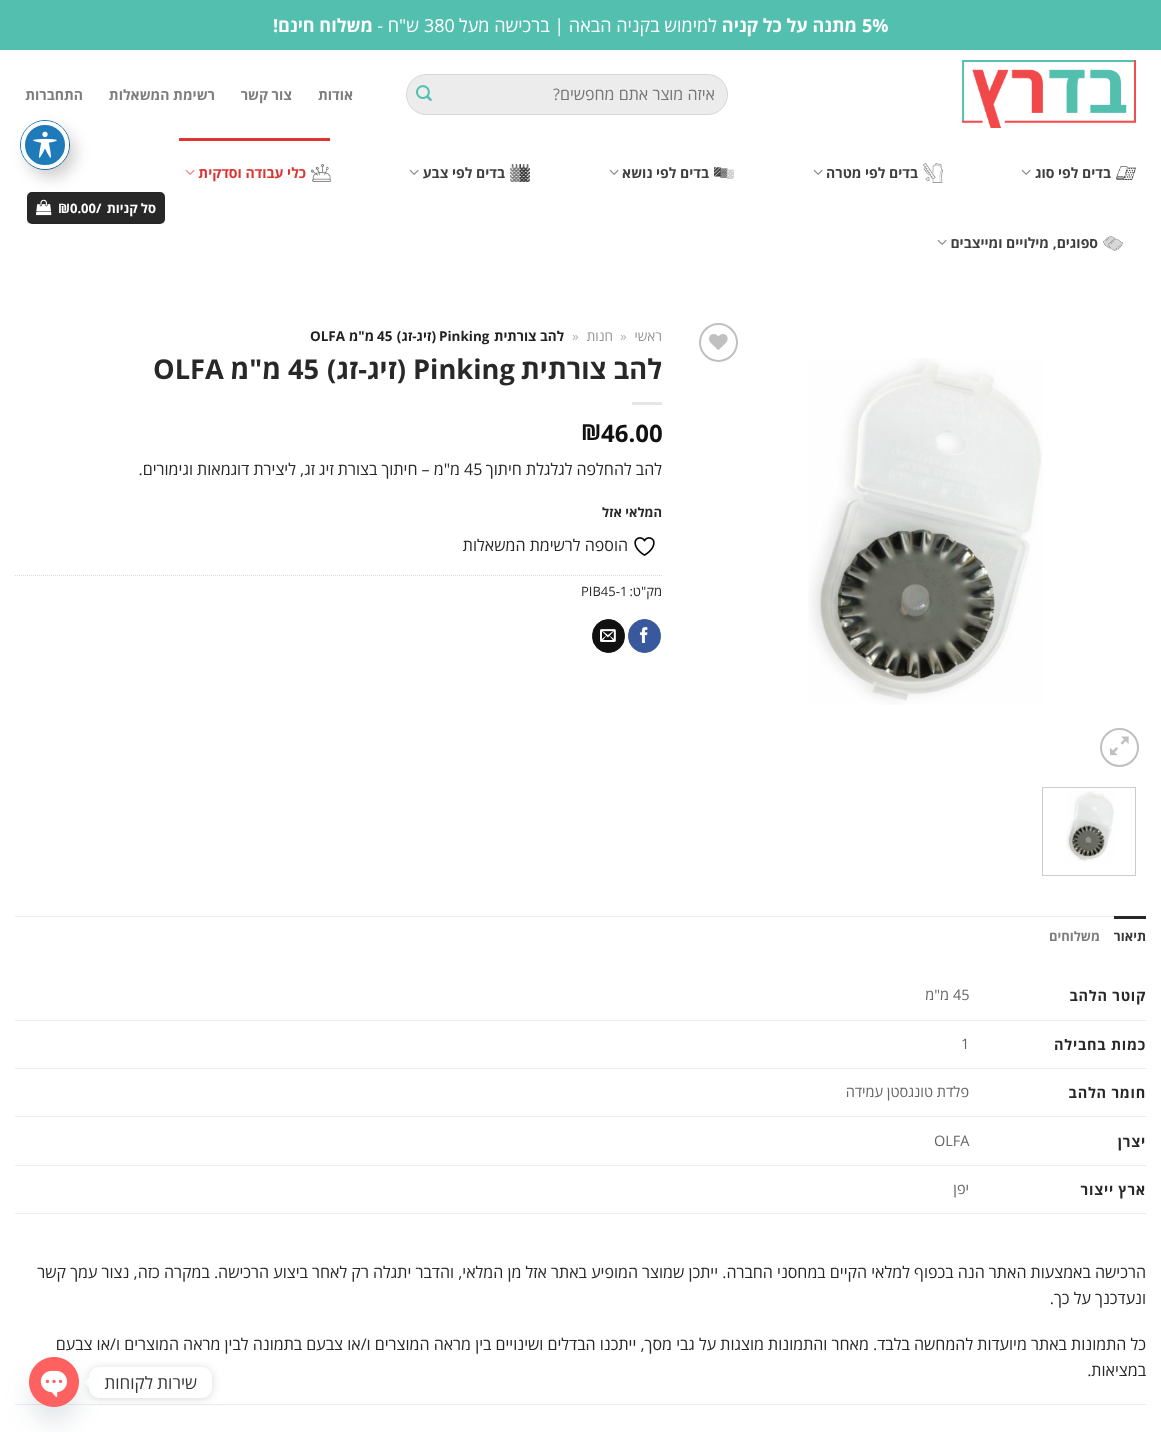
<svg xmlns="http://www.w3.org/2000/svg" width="1161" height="1432">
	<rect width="100%" height="100%" fill="#FFFFFF" />
	<rect x="0" y="0" width="1161" height="50" fill="#52BFAF" />
	<text x="862" y="32" font-family="Open Sans" font-size="18" font-weight="700" fill="#FFFFFF">5%</text>
	<text x="857" y="32" font-family="Open Sans" font-size="18" font-weight="700" direction="rtl" fill="#FFFFFF">מתנה על כל קניה</text>
	<text x="717" y="32" font-family="Open Sans" font-size="18" direction="rtl" fill="#FFFFFF">למימוש בקניה הבאה | ברכישה מעל</text>
	<text x="424" y="32" font-family="Open Sans" font-size="18" fill="#FFFFFF">380</text>
	<text x="419" y="32" font-family="Open Sans" font-size="18" direction="rtl" fill="#FFFFFF">ש"ח -</text>
	<text x="373" y="32" font-family="Open Sans" font-size="18" font-weight="700" direction="rtl" fill="#FFFFFF">משלוח חינם!</text>
	<image x="962" y="60" width="174" height="68" href="assets/img1.png" />
	<rect x="406" y="74" width="322" height="41" rx="20.5" fill="#ECECEC" />
	<rect x="406.5" y="74.5" width="321" height="40" rx="20" fill="none" stroke="#000000" stroke-opacity="0.09" />
	<text x="715" y="100" font-family="Open Sans" font-size="16" direction="rtl" fill="#757575">איזה מוצר אתם מחפשים?</text>
	<image x="416" y="85" width="16" height="16" href="assets/img2.png" />
	<g font-family="Open Sans" font-size="14" font-weight="700" direction="rtl" fill="#7D7D7D">
		<text x="353" y="100">אודות</text>
		<text x="292" y="100">צור קשר</text>
		<text x="215" y="100">רשימת המשאלות</text>
		<text x="83" y="100">התחברות</text>
	</g>
	<image x="1116" y="166" width="20" height="14" href="assets/img3.png" />
	<text x="1111" y="178" font-family="Open Sans" font-size="14" font-weight="700" direction="rtl" fill="#3F3F3F">בדים לפי סוג</text>
	<image x="1021" y="169" width="10" height="6" href="assets/img4.png" />
	<image x="923" y="163" width="20" height="20" href="assets/img5.png" />
	<text x="918" y="178" font-family="Open Sans" font-size="14" font-weight="700" direction="rtl" fill="#3F3F3F">בדים לפי מטרה</text>
	<image x="813" y="169" width="10" height="6" href="assets/img4.png" />
	<image x="714" y="167" width="20" height="12" href="assets/img6.png" />
	<text x="709" y="178" font-family="Open Sans" font-size="14" font-weight="700" direction="rtl" fill="#3F3F3F">בדים לפי נושא</text>
	<image x="609" y="169" width="10" height="6" href="assets/img4.png" />
	<image x="510" y="164" width="20" height="18" href="assets/img7.png" />
	<text x="505" y="178" font-family="Open Sans" font-size="14" font-weight="700" direction="rtl" fill="#3F3F3F">בדים לפי צבע</text>
	<image x="409" y="169" width="10" height="6" href="assets/img4.png" />
	<rect x="179" y="138" width="151" height="3" fill="#DD3333" />
	<image x="311" y="164" width="20" height="18" href="assets/img8.png" />
	<text x="306" y="178" font-family="Open Sans" font-size="14" font-weight="700" direction="rtl" fill="#DD3333">כלי עבודה וסדקית</text>
	<image x="185" y="169" width="10" height="6" href="assets/img9.png" />
	<image x="1103" y="236" width="20" height="15" href="assets/img10.png" />
	<text x="1098" y="248" font-family="Open Sans" font-size="14" font-weight="700" direction="rtl" fill="#3F3F3F">ספוגים, מילויים ומייצבים</text>
	<image x="937" y="239" width="10" height="6" href="assets/img4.png" />
	<rect x="27" y="192" width="138" height="32" rx="5" fill="#282828" />
	<rect x="27.5" y="192.5" width="137" height="31" fill="none" stroke="#000000" stroke-opacity="0.05" />
	<text x="156" y="213" font-family="Open Sans" font-size="13" font-weight="700" direction="rtl" fill="#FFFFFF">סל קניות</text>
	<g font-family="Open Sans" font-size="13" font-weight="700" fill="#FFFFFF">
		<text x="96" y="213">/</text>
		<text x="58" y="213">₪0.00</text>
	</g>
	<image x="36" y="199" width="16" height="17" href="assets/img11.png" />
	<circle cx="718.5" cy="342.5" r="18.5" fill="none" stroke="#C0C0C0" stroke-width="2" />
	<image x="709" y="334" width="19" height="16" href="assets/img12.png" />
	<image x="808" y="358" width="235" height="347" href="assets/img13.png" />
	<circle cx="1119.5" cy="747.5" r="18.5" fill="none" stroke="#C0C0C0" stroke-width="2" />
	<image x="1110" y="736" width="19" height="20" href="assets/img14.png" />
	<rect x="1042.5" y="787.5" width="93" height="88" fill="none" stroke="#CCCCCC" />
	<image x="1066" y="791" width="48" height="71" href="assets/img15.png" />
	<text x="662" y="341" font-family="Open Sans" font-size="13.5" direction="rtl" fill="#949494">ראשי</text>
	<text x="620" y="341" font-family="Open Sans" font-size="13.5" fill="#B2B2B2">»</text>
	<text x="613" y="341" font-family="Open Sans" font-size="13.5" direction="rtl" fill="#949494">חנות</text>
	<text x="572" y="341" font-family="Open Sans" font-size="13.5" fill="#B2B2B2">»</text>
	<text x="564" y="341" font-family="Open Sans" font-size="13.5" font-weight="700" direction="rtl" fill="#222222">להב צורתית</text>
	<text x="439" y="341" font-family="Open Sans" font-size="13.5" font-weight="700" fill="#222222">Pinking</text>
	<text x="436" y="341" font-family="Open Sans" font-size="13.5" font-weight="700" direction="rtl" fill="#222222">(זיג-זג)</text>
	<text x="377" y="341" font-family="Open Sans" font-size="13.5" font-weight="700" fill="#222222">45</text>
	<text x="374" y="341" font-family="Open Sans" font-size="13.5" font-weight="700" direction="rtl" fill="#222222">מ"מ</text>
	<text x="310" y="341" font-family="Open Sans" font-size="13.5" font-weight="700" fill="#222222">OLFA</text>
	<text x="662" y="379" font-family="Open Sans" font-size="27.25" font-weight="700" direction="rtl" fill="#282828">להב צורתית</text>
	<text x="413" y="379" font-family="Open Sans" font-size="27.25" font-weight="700" fill="#282828">Pinking</text>
	<text x="406" y="379" font-family="Open Sans" font-size="27.25" font-weight="700" direction="rtl" fill="#282828">(זיג-זג)</text>
	<text x="288" y="379" font-family="Open Sans" font-size="27.25" font-weight="700" fill="#282828">45</text>
	<text x="281" y="379" font-family="Open Sans" font-size="27.25" font-weight="700" direction="rtl" fill="#282828">מ"מ</text>
	<text x="153" y="379" font-family="Open Sans" font-size="27.25" font-weight="700" fill="#282828">OLFA</text>
	<rect x="632" y="402" width="30" height="3" fill="#E6E6E6" />
	<text x="601" y="442" font-family="Open Sans" font-size="24" font-weight="700" fill="#111111">46.00</text>
	<text x="581" y="440" font-family="Open Sans" font-size="22" font-weight="700" fill="#111111">₪</text>
	<text x="662" y="475" font-family="Open Sans" font-size="16" direction="rtl" fill="#282828">להב להחלפה לגלגלת חיתוך</text>
	<text x="464" y="475" font-family="Open Sans" font-size="16" fill="#282828">45</text>
	<text x="460" y="475" font-family="Open Sans" font-size="16" direction="rtl" fill="#282828">מ"מ – חיתוך בצורת זיג זג, ליצירת דוגמאות וגימורים.</text>
	<text x="662" y="517" font-family="Open Sans" font-size="13" font-weight="700" direction="rtl" fill="#282828">המלאי אזל</text>
	<image x="634" y="537" width="21" height="19" href="assets/img16.png" />
	<text x="628" y="551" font-family="Open Sans" font-size="16" direction="rtl" fill="#282828">הוספה לרשימת המשאלות</text>
	<path d="M15 575.5H662" fill="none" stroke="#DDDDDD" stroke-dasharray="1 1" />
	<text x="662" y="596" font-family="Open Sans" font-size="13" direction="rtl" fill="#282828">מק"ט:</text>
	<text x="581" y="596" font-family="Open Sans" font-size="13" fill="#282828">PIB45-1</text>
	<rect x="628.5" y="619.5" width="32" height="33" rx="16" fill="#3A589D" stroke="#3A589D" />
	<image x="639" y="627" width="9" height="16" href="assets/img17.png" />
	<rect x="592.5" y="619.5" width="32" height="33" rx="16" fill="#111111" stroke="#111111" />
	<image x="600" y="629" width="16" height="13" href="assets/img18.png" />
	<rect x="15" y="916" width="1099" height="1" fill="#ECECEC" />
	<rect x="1114" y="916" width="32" height="3" fill="#282828" />
	<text x="1146" y="941" font-family="Open Sans" font-size="13" font-weight="700" direction="rtl" fill="#363636">תיאור</text>
	<text x="1100" y="941" font-family="Open Sans" font-size="13" font-weight="700" direction="rtl" fill="#7D7D7D">משלוחים</text>
	<rect x="15" y="1020" width="1131" height="1" fill="#ECECEC" />
	<text x="1146" y="1001" font-family="Open Sans" font-size="14.5" font-weight="700" letter-spacing="0.75" direction="rtl" fill="#282828">קוטר הלהב</text>
	<text x="953" y="1000" font-family="Open Sans" font-size="14.5" fill="#666666">45</text>
	<text x="949" y="1000" font-family="Open Sans" font-size="14.5" direction="rtl" fill="#666666">מ"מ</text>
	<rect x="15" y="1068" width="1131" height="1" fill="#ECECEC" />
	<text x="1146" y="1050" font-family="Open Sans" font-size="14.5" font-weight="700" letter-spacing="0.75" direction="rtl" fill="#282828">כמות בחבילה</text>
	<text x="961" y="1049" font-family="Open Sans" font-size="14.5" fill="#666666">1</text>
	<rect x="15" y="1116" width="1131" height="1" fill="#ECECEC" />
	<text x="1146" y="1098" font-family="Open Sans" font-size="14.5" font-weight="700" letter-spacing="0.75" direction="rtl" fill="#282828">חומר הלהב</text>
	<text x="969" y="1097" font-family="Open Sans" font-size="14.5" direction="rtl" fill="#666666">פלדת טונגסטן עמידה</text>
	<rect x="15" y="1165" width="1131" height="1" fill="#ECECEC" />
	<text x="1146" y="1147" font-family="Open Sans" font-size="14.5" font-weight="700" letter-spacing="0.75" direction="rtl" fill="#282828">יצרן</text>
	<text x="934" y="1146" font-family="Open Sans" font-size="14.5" fill="#666666">OLFA</text>
	<rect x="15" y="1213" width="1131" height="1" fill="#ECECEC" />
	<text x="1146" y="1195" font-family="Open Sans" font-size="14.5" font-weight="700" letter-spacing="0.75" direction="rtl" fill="#282828">ארץ ייצור</text>
	<text x="969" y="1194" font-family="Open Sans" font-size="14.5" direction="rtl" fill="#666666">יפן</text>
	<g font-family="Open Sans" font-size="16" direction="rtl" fill="#282828">
		<text x="1146" y="1278">הרכישה באמצעות האתר הנה בכפוף למלאי הקיים במחסני החברה. ייתכן שמוצר המופיע באתר אזל מן המלאי, והדבר יתגלה רק לאחר ביצוע הרכישה. במקרה כזה, נצור עמך קשר</text>
		<text x="1146" y="1304">ונעדכנך על כך.</text>
		<text x="1146" y="1350">כל התמונות באתר מיועדות להמחשה בלבד. מאחר והתמונות מוצגות על גבי מסך, ייתכנו הבדלים ושינויים בין מראה המוצרים ו/או צבעם בתמונה לבין מראה המוצרים ו/או צבעם</text>
		<text x="1146" y="1376">במציאות.</text>
	</g>
	<rect x="15" y="1404" width="1131" height="1" fill="#ECECEC" />
	<circle cx="45" cy="145" r="24.5" fill="none" stroke="#1E7AB9" />
	<rect x="27" y="129" width="48" height="48" rx="24" fill="#000000" fill-opacity="0.2" filter="blur(8px)" />
	<circle cx="45" cy="145" r="22" fill="#1E7AB9" stroke="#FFFFFF" stroke-width="4" />
	<image x="33" y="131" width="24" height="27" href="assets/img19.png" />
	<rect x="89" y="1368" width="123" height="31" rx="10" fill="#000000" fill-opacity="0.15" filter="blur(4px)" />
	<rect x="89" y="1367" width="123" height="31" rx="10" fill="#FFFFFF" />
	<text x="197" y="1389" font-family="Open Sans" font-size="17" direction="rtl" fill="#363636">שירות לקוחות</text>
	<path d="M89 1377.5V1387.5L84 1382.5Z" fill="#FFFFFF" />
	<rect x="29" y="1373" width="50" height="50" rx="25" fill="#49687E" fill-opacity="0.16" filter="blur(12px)" />
	<image x="29" y="1357" width="50" height="50" href="assets/img20.png" />
</svg>
